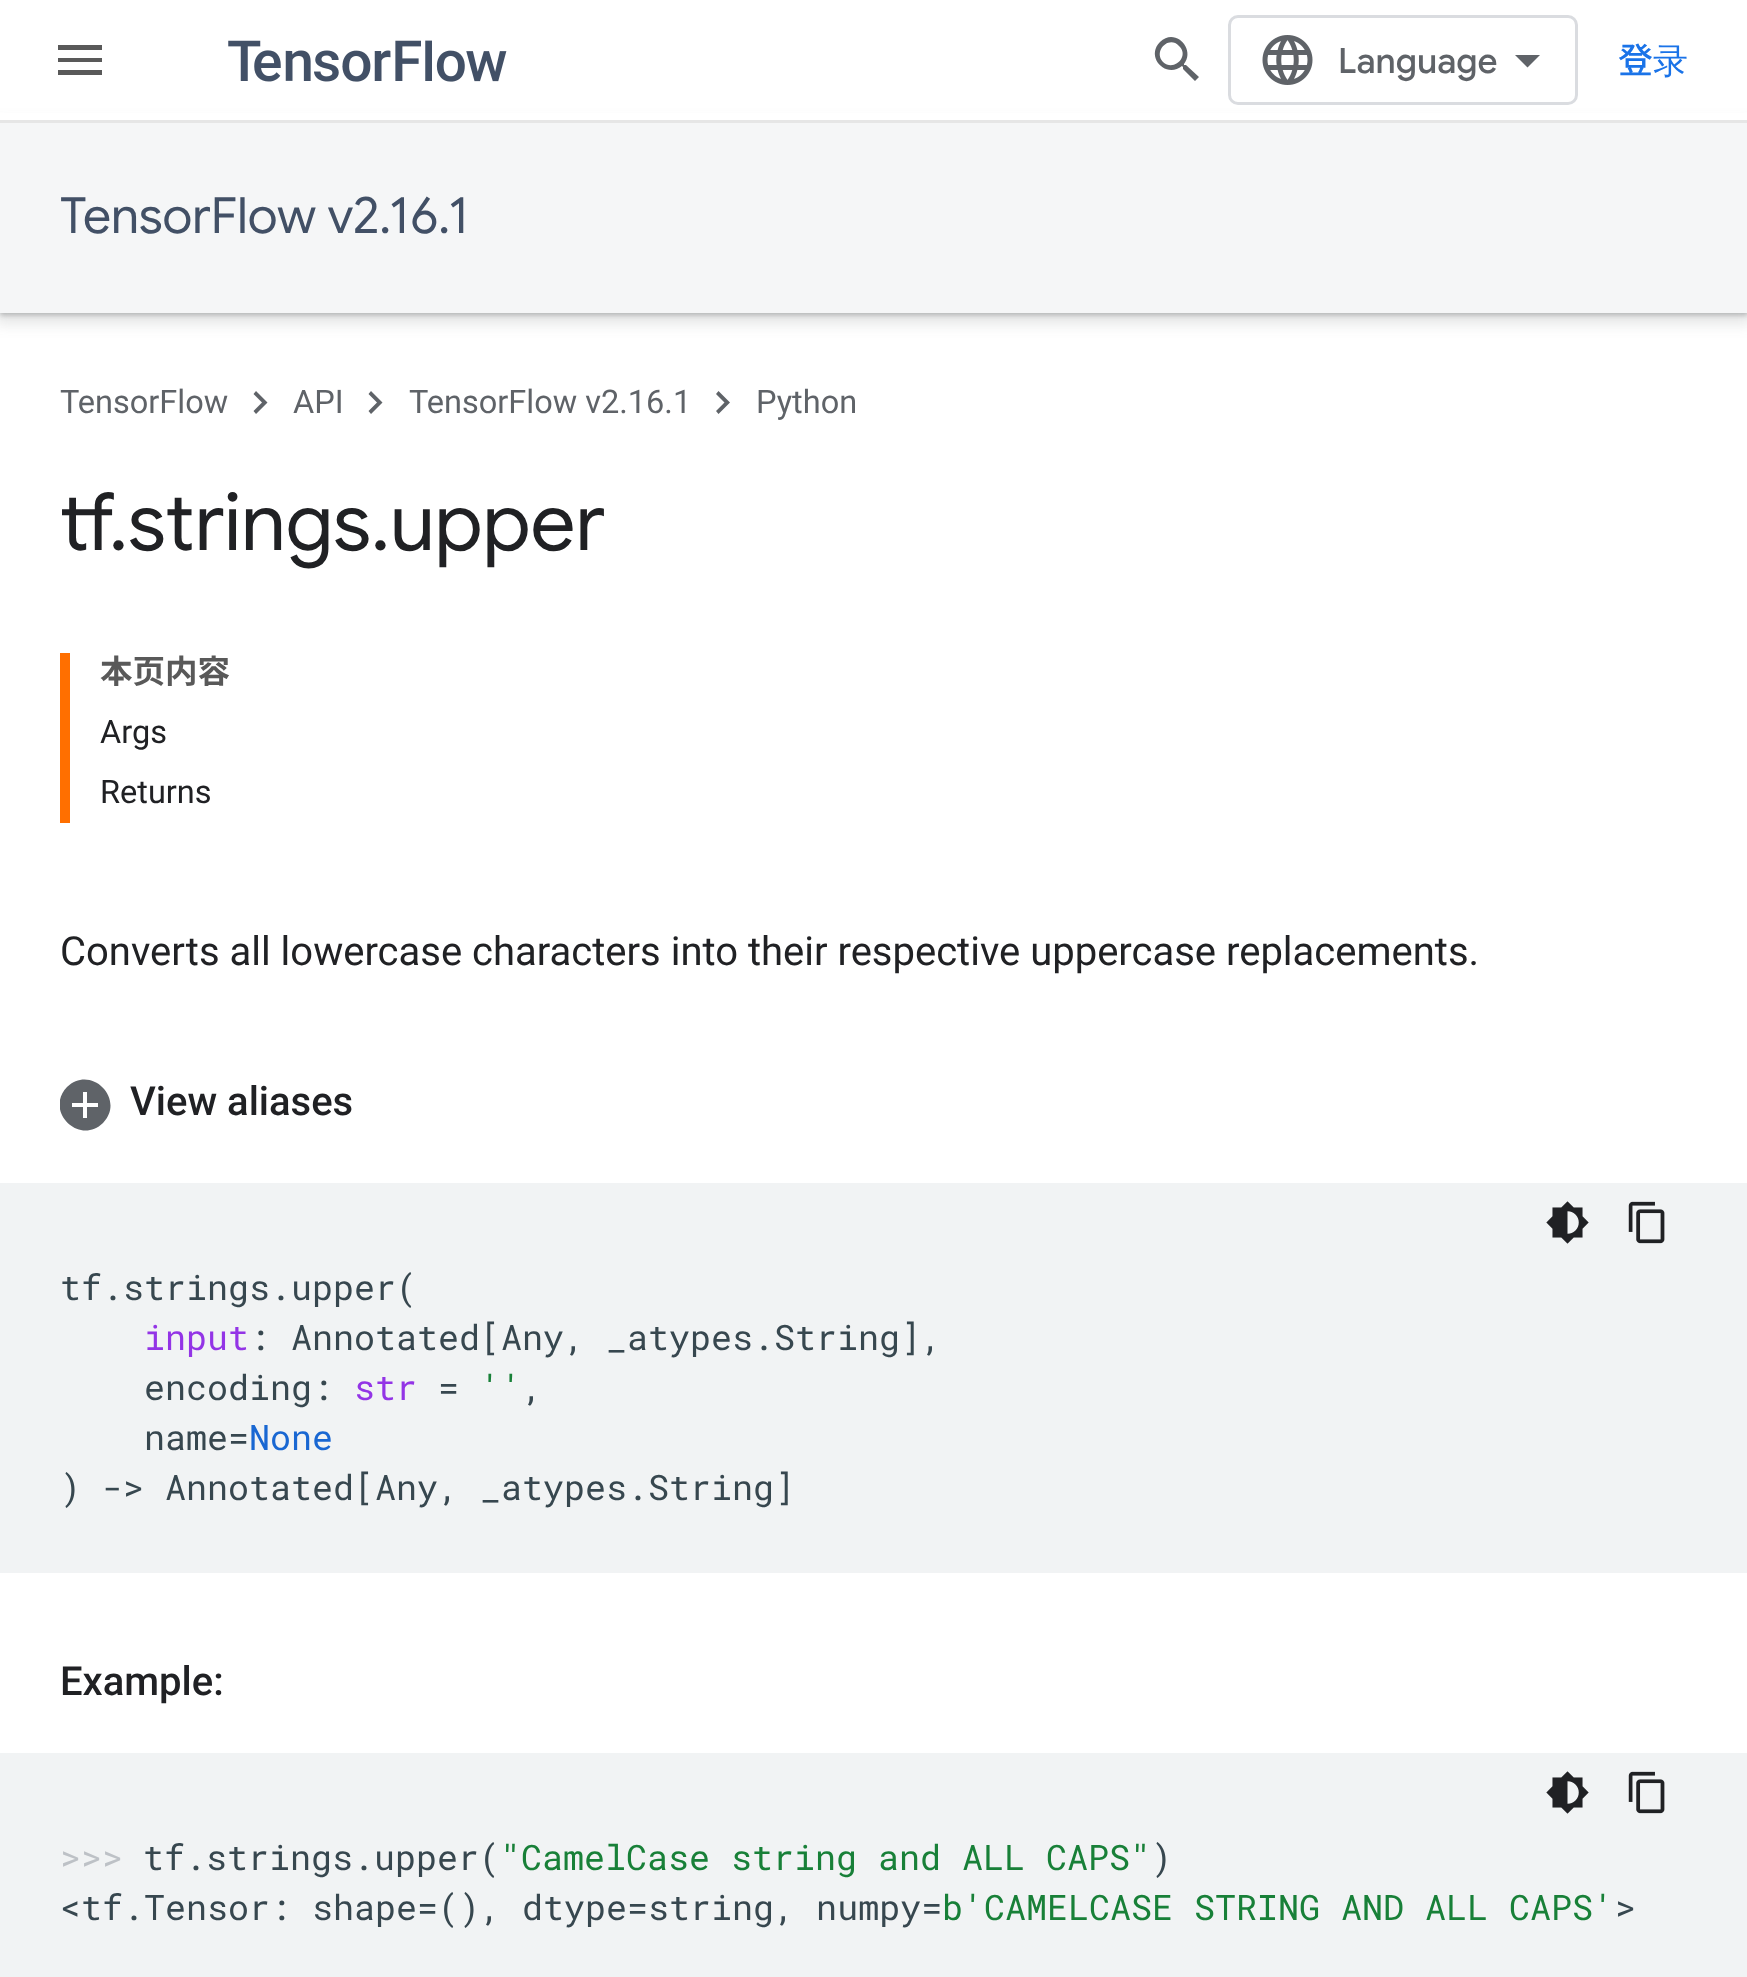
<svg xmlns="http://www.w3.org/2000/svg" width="1747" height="1977">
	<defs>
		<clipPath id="clip1"><rect x="60" y="0" width="1628" height="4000" /></clipPath>
	</defs>
	<rect width="100%" height="100%" fill="#FFFFFF" />
	<rect x="-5" y="123" width="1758" height="200" fill="#3C4043" fill-opacity="0.15" filter="blur(7.5px)" />
	<rect x="0" y="125" width="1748" height="190" fill="#3C4043" fill-opacity="0.3" filter="blur(2.5px)" />
	<rect x="0" y="113" width="1747" height="7" fill="#FFFFFF" />
	<rect x="0" y="120" width="1747" height="3" fill="#E6E6E6" />
	<path d="M58 45H102V50H58ZM58 62V58H102V62ZM58 75V70H102V75Z" fill="#595959" />
	<image x="228" y="40" width="279" height="42" href="assets/img1.png" />
	<path d="M1163 62C1174 72 1190 56 1179 46C1169 35 1153 51 1163 62ZM1186 65L1199 77L1195 81L1183 69V67L1182 66C1166 79 1145 57 1160 42C1175 27 1196 49 1184 64V65Z" fill="#5F6368" />
	<rect x="1229.5" y="16.5" width="347" height="87" rx="8.5" fill="none" stroke="#DADCE0" stroke-width="3" />
	<image x="1262" y="35" width="51" height="50" href="assets/img2.png" />
	<text x="1338" y="73" font-family="Google Sans" font-size="35" font-weight="500" fill="#5F6368">Language</text>
	<path d="M1527.5 67.5L1515 55H1540Z" fill="#5F6368" />
	<text x="1618" y="73" font-family="Noto Sans JP" font-size="35" font-weight="500" fill="#1A73E8">登</text>
	<text x="1653" y="73" font-family="WenQuanYi Zen Hei" font-size="35" font-weight="500" fill="#1A73E8">录</text>
	<rect x="0" y="123" width="1747" height="190" fill="#F5F6F7" />
	<text x="60" y="233" font-family="Google Sans" font-size="50" fill="#425066">TensorFlow v2.16.1</text>
	<text x="60" y="413" font-family="Roboto" font-size="32.5" fill="#5F6368">TensorFlow</text>
	<path d="M256 391L267.5 402.5L256 414L253.5 411L262 402.5L253.5 394Z" fill="#5F6368" />
	<text x="293" y="413" font-family="Roboto" font-size="32.5" fill="#5F6368">API</text>
	<path d="M371 391L382.5 402.5L371 414L368.5 411L377 402.5L368.5 394Z" fill="#5F6368" />
	<text x="409" y="413" font-family="Roboto" font-size="32.5" fill="#5F6368">TensorFlow v2.16.1</text>
	<path d="M718.5 391L730 402.5L718.5 414L716 411L724.5 402.5L716 394Z" fill="#5F6368" />
	<text x="756" y="413" font-family="Roboto" font-size="32.5" fill="#5F6368">Python</text>
	<g font-family="Google Sans" font-size="80" fill="#202124">
		<text x="60" y="550">tf</text>
		<text x="109" y="550">.strings.upper</text>
	</g>
	<rect x="60" y="653" width="10" height="170" fill="#FF6F00" />
	<text x="100" y="683" font-family="Noto Sans JP" font-size="32.5" font-weight="700" fill="#595959">本页内容</text>
	<g font-family="Roboto" font-size="32.5" fill="#202124">
		<text x="100" y="743">Args</text>
		<text x="100" y="803">Returns</text>
	</g>
	<text x="60" y="965" font-family="Roboto" font-size="40" fill="#202124">Converts all lowercase characters into their respective uppercase replacements.</text>
	<g clip-path="url(#clip1)">
		<path d="M98 1107V1103H87V1092H83V1103H72V1107H83V1118H87V1107ZM67 1087C91 1064 126 1099 103 1123C79 1146 44 1111 67 1087Z" fill="#5F6368" />
	</g>
	<text x="130" y="1115" font-family="Roboto" font-size="40" font-weight="500" fill="#202124">View aliases</text>
	<rect x="0" y="1183" width="1747" height="390" fill="#F1F3F4" />
	<image x="1546" y="1201" width="43" height="43" href="assets/img3.png" />
	<image x="1628" y="1201" width="37" height="43" href="assets/img4.png" />
	<text x="60" y="1300" font-family="Roboto Mono" font-size="35" fill="#37474F">tf.strings.upper(</text>
	<text x="144" y="1350" font-family="Roboto Mono" font-size="35" fill="#9334E6">input</text>
	<g font-family="Roboto Mono" font-size="35" fill="#37474F">
		<text x="249" y="1350">: Annotated[Any, _atypes.String],</text>
		<text x="144" y="1400">encoding:</text>
	</g>
	<text x="354" y="1400" font-family="Roboto Mono" font-size="35" fill="#9334E6">str</text>
	<text x="438" y="1400" font-family="Roboto Mono" font-size="35" fill="#37474F">=</text>
	<text x="480" y="1400" font-family="Roboto Mono" font-size="35" fill="#188038">''</text>
	<g font-family="Roboto Mono" font-size="35" fill="#37474F">
		<text x="522" y="1400">,</text>
		<text x="144" y="1450">name=</text>
	</g>
	<text x="249" y="1450" font-family="Roboto Mono" font-size="35" fill="#1967D2">None</text>
	<text x="60" y="1500" font-family="Roboto Mono" font-size="35" fill="#37474F">) -&gt; Annotated[Any, _atypes.String]</text>
	<text x="60" y="1695" font-family="Roboto" font-size="40" font-weight="500" fill="#202124">Example:</text>
	<rect x="0" y="1753" width="1747" height="224" fill="#F1F3F4" />
	<image x="1546" y="1771" width="43" height="43" href="assets/img3.png" />
	<image x="1628" y="1771" width="37" height="43" href="assets/img4.png" />
	<text x="60" y="1870" font-family="Roboto Mono" font-size="35" fill="#BDC1C6">&gt;&gt;&gt;</text>
	<text x="143" y="1870" font-family="Roboto Mono" font-size="35" fill="#37474F">tf.strings.upper(</text>
	<text x="500" y="1870" font-family="Roboto Mono" font-size="35" fill="#188038">"CamelCase string and ALL CAPS"</text>
	<g font-family="Roboto Mono" font-size="35" fill="#37474F">
		<text x="1151" y="1870">)</text>
		<text x="60" y="1920">&lt;tf.Tensor: shape=(), dtype=string, numpy=</text>
	</g>
	<text x="942" y="1920" font-family="Roboto Mono" font-size="35" fill="#188038">b'CAMELCASE STRING AND ALL CAPS'</text>
	<text x="1615" y="1920" font-family="Roboto Mono" font-size="35" fill="#37474F">&gt;</text>
</svg>
